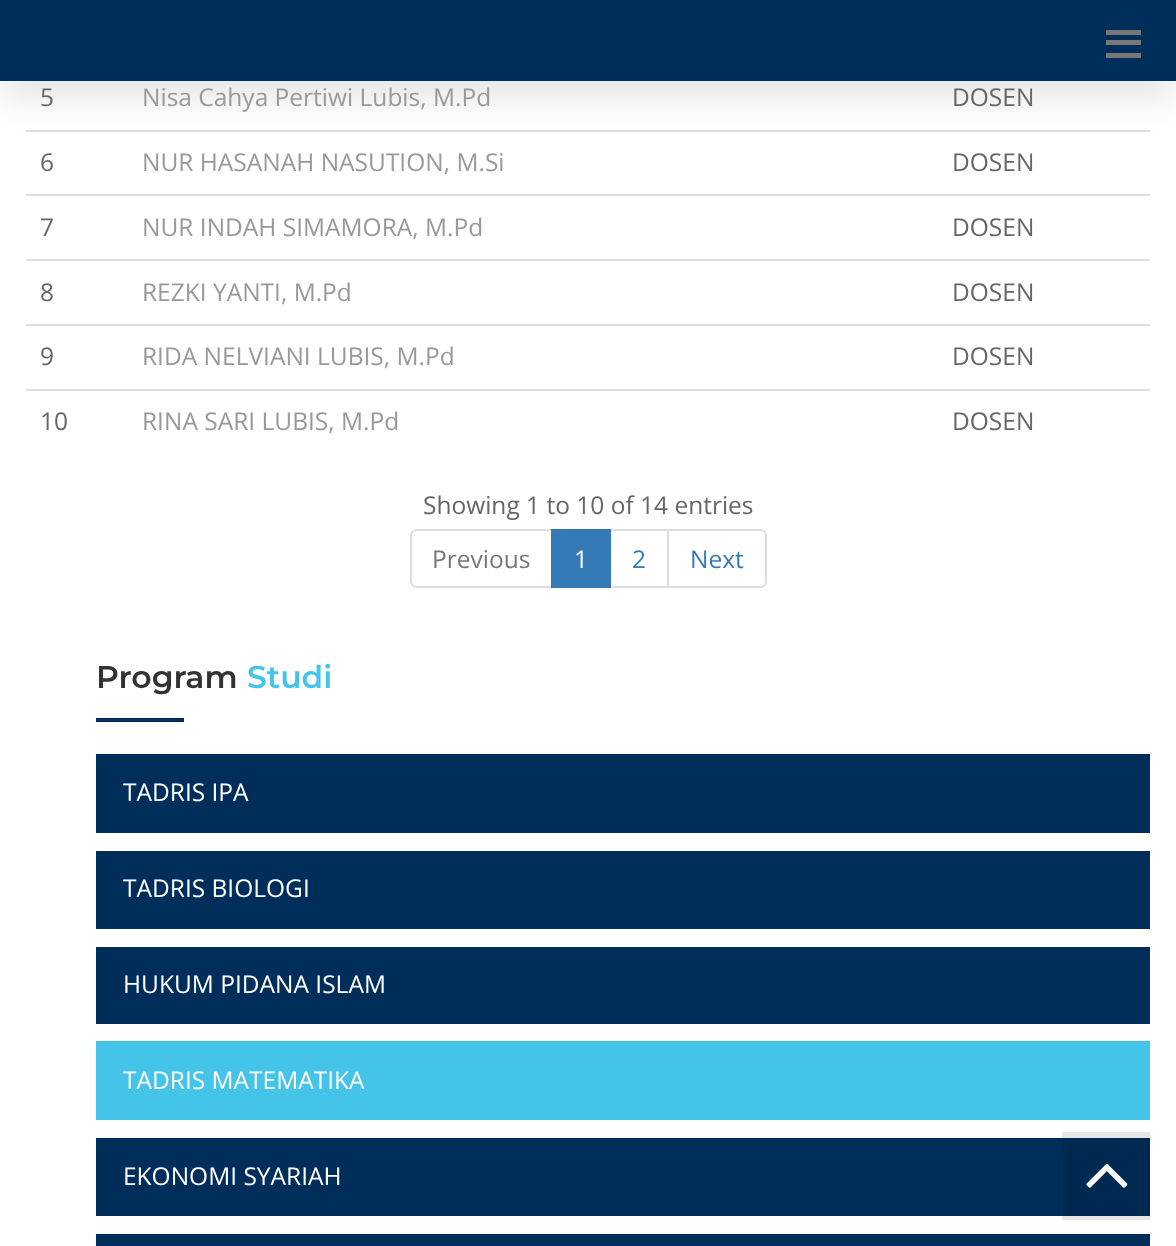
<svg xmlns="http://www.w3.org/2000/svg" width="1176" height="1246">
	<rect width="100%" height="100%" fill="#FFFFFF" />
	<rect x="1062" y="1132" width="88" height="88" fill="#E6E6E6" />
	<rect x="26" y="130" width="1124" height="2" fill="#DDDDDD" />
	<rect x="0" y="18" width="1176" height="80" fill="#000000" fill-opacity="0.1" filter="blur(17.5px)" />
	<rect x="0" y="0" width="1176" height="81" fill="#002E5B" />
	<rect x="1106" y="30" width="35" height="5" fill="#777777" />
	<rect x="1106" y="40" width="35" height="5" fill="#777777" />
	<rect x="1106" y="53" width="35" height="5" fill="#777777" />
	<text x="40" y="106" font-family="Open Sans" font-size="24.5" fill="#666666">5</text>
	<text x="142" y="106" font-family="Open Sans" font-size="24.5" fill="#999999">Nisa Cahya Pertiwi Lubis, M.Pd</text>
	<g font-family="Open Sans" font-size="24.5" fill="#666666">
		<text x="952" y="106">DOSEN</text>
		<text x="40" y="171">6</text>
	</g>
	<text x="142" y="171" font-family="Open Sans" font-size="24.5" fill="#999999">NUR HASANAH NASUTION, M.Si</text>
	<text x="952" y="171" font-family="Open Sans" font-size="24.5" fill="#666666">DOSEN</text>
	<rect x="26" y="194" width="1124" height="2" fill="#DDDDDD" />
	<text x="40" y="236" font-family="Open Sans" font-size="24.5" fill="#666666">7</text>
	<text x="142" y="236" font-family="Open Sans" font-size="24.5" fill="#999999">NUR INDAH SIMAMORA, M.Pd</text>
	<text x="952" y="236" font-family="Open Sans" font-size="24.5" fill="#666666">DOSEN</text>
	<rect x="26" y="259" width="1124" height="2" fill="#DDDDDD" />
	<text x="40" y="301" font-family="Open Sans" font-size="24.5" fill="#666666">8</text>
	<text x="142" y="301" font-family="Open Sans" font-size="24.5" fill="#999999">REZKI YANTI, M.Pd</text>
	<text x="952" y="301" font-family="Open Sans" font-size="24.5" fill="#666666">DOSEN</text>
	<rect x="26" y="324" width="1124" height="2" fill="#DDDDDD" />
	<text x="40" y="365" font-family="Open Sans" font-size="24.5" fill="#666666">9</text>
	<text x="142" y="365" font-family="Open Sans" font-size="24.5" fill="#999999">RIDA NELVIANI LUBIS, M.Pd</text>
	<text x="952" y="365" font-family="Open Sans" font-size="24.5" fill="#666666">DOSEN</text>
	<rect x="26" y="389" width="1124" height="2" fill="#DDDDDD" />
	<text x="40" y="430" font-family="Open Sans" font-size="24.5" fill="#666666">10</text>
	<text x="142" y="430" font-family="Open Sans" font-size="24.5" fill="#999999">RINA SARI LUBIS, M.Pd</text>
	<g font-family="Open Sans" font-size="24.5" fill="#666666">
		<text x="952" y="430">DOSEN</text>
		<text x="423" y="514">Showing 1 to 10 of 14 entries</text>
	</g>
	<path d="M417 530H552V587H417C413.5 587 411 584.5 411 581V536C411 532.5 413.5 530 417 530Z" fill="none" stroke="#DDDDDD" stroke-width="2" />
	<text x="432" y="568" font-family="Open Sans" font-size="24.5" fill="#777777">Previous</text>
	<rect x="610" y="530" width="58" height="57" fill="none" stroke="#DDDDDD" stroke-width="2" />
	<rect x="551" y="529" width="60" height="59" fill="#337AB7" />
	<text x="574" y="568" font-family="Open Sans" font-size="24.5" fill="#FFFFFF">1</text>
	<text x="632" y="568" font-family="Open Sans" font-size="24.5" fill="#337AB7">2</text>
	<path d="M668 530H760C763.5 530 766 532.5 766 536V581C766 584.5 763.5 587 760 587H668Z" fill="#FFFFFF" stroke="#DDDDDD" stroke-width="2" />
	<text x="690" y="568" font-family="Open Sans" font-size="24.5" fill="#337AB7">Next</text>
	<text x="96" y="688" font-family="Montserrat" font-size="31.5" font-weight="600" fill="#333333">Program</text>
	<text x="247" y="688" font-family="Montserrat" font-size="31.5" font-weight="600" fill="#45C4E9">Studi</text>
	<rect x="96" y="718" width="88" height="4" fill="#002E5B" />
	<rect x="96" y="754" width="1054" height="79" fill="#002E5B" />
	<text x="123" y="801" font-family="Open Sans" font-size="24.5" fill="#FFFFFF">TADRIS IPA</text>
	<rect x="96" y="851" width="1054" height="78" fill="#002E5B" />
	<text x="123" y="897" font-family="Open Sans" font-size="24.5" fill="#FFFFFF">TADRIS BIOLOGI</text>
	<rect x="96" y="947" width="1054" height="77" fill="#002E5B" />
	<text x="123" y="993" font-family="Open Sans" font-size="24.5" fill="#FFFFFF">HUKUM PIDANA ISLAM</text>
	<rect x="96" y="1041" width="1054" height="79" fill="#45C4E9" />
	<text x="123" y="1089" font-family="Open Sans" font-size="24.5" fill="#FFFFFF">TADRIS MATEMATIKA</text>
	<rect x="96" y="1138" width="966" height="78" fill="#002E5B" />
	<rect x="1062" y="1138" width="88" height="78" fill="#002952" />
	<text x="123" y="1185" font-family="Open Sans" font-size="24.5" fill="#FFFFFF">EKONOMI SYARIAH</text>
	<rect x="96" y="1234" width="1054" height="12" fill="#002E5B" />
	<image x="1086" y="1163" width="42" height="25" href="assets/img1.png" />
</svg>
